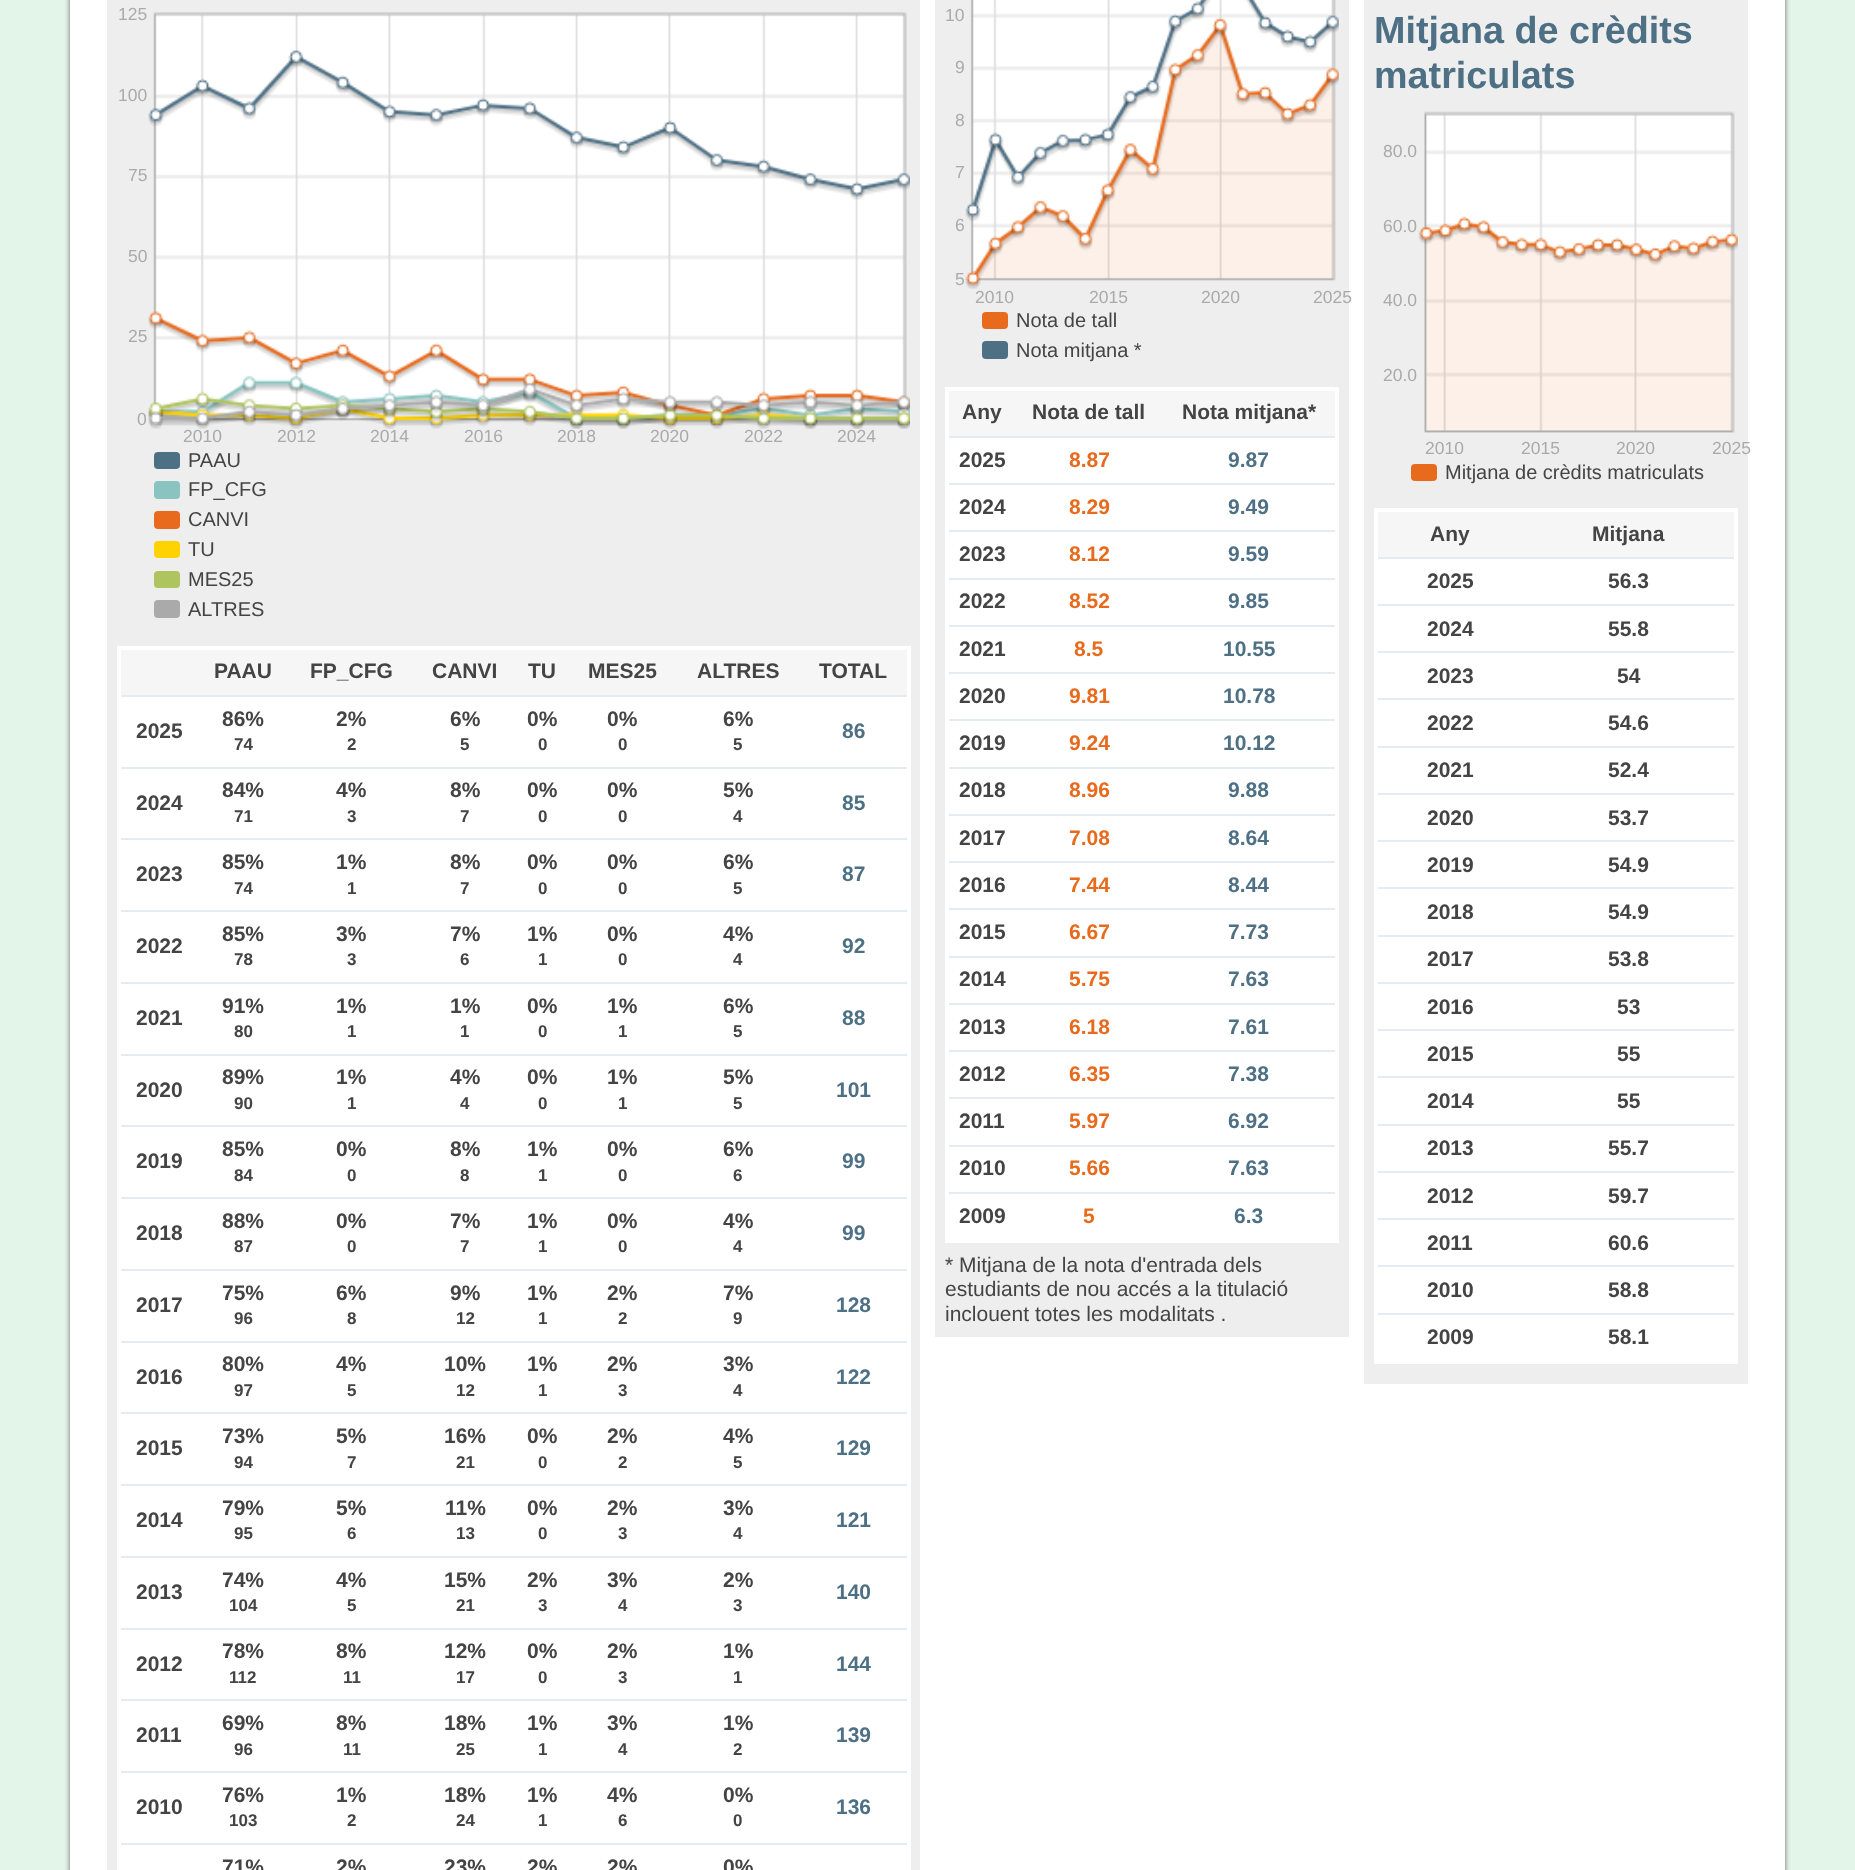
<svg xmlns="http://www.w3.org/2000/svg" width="1855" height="1870">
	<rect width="100%" height="100%" fill="#E3F4E8" />
	<rect x="70" y="-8" width="1715" height="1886" fill="#666666" filter="blur(2.5px)" />
	<rect x="70" y="0" width="1715" height="1870" fill="#FFFFFF" />
	<rect x="107" y="0" width="813" height="1870" fill="#EEEEEE" />
	<g font-family="Liberation Sans" font-size="17.5" fill="#AAAAAA">
		<text x="118" y="20">125</text>
		<text x="118" y="101">100</text>
		<text x="128" y="181">75</text>
		<text x="128" y="262">50</text>
		<text x="128" y="342">25</text>
		<text x="137" y="425">0</text>
		<text x="183" y="442">2010</text>
		<text x="277" y="442">2012</text>
		<text x="370" y="442">2014</text>
		<text x="464" y="442">2016</text>
		<text x="557" y="442">2018</text>
		<text x="650" y="442">2020</text>
		<text x="744" y="442">2022</text>
		<text x="837" y="442">2024</text>
	</g>
	<image x="148" y="12" width="762" height="417" href="assets/img1.png" />
	<rect x="154" y="452" width="26" height="17" rx="4" fill="#4E7085" />
	<text x="188" y="467" font-family="Liberation Sans" font-size="20" fill="#444444">PAAU</text>
	<rect x="154" y="481" width="26" height="18" rx="4" fill="#89C4C1" />
	<text x="188" y="496" font-family="Liberation Sans" font-size="20" fill="#444444">FP_CFG</text>
	<rect x="154" y="511" width="26" height="18" rx="4" fill="#E86A1C" />
	<text x="188" y="526" font-family="Liberation Sans" font-size="20" fill="#444444">CANVI</text>
	<rect x="154" y="541" width="26" height="17" rx="4" fill="#FFD200" />
	<text x="188" y="556" font-family="Liberation Sans" font-size="20" fill="#444444">TU</text>
	<rect x="154" y="571" width="26" height="17" rx="4" fill="#AEC45F" />
	<text x="188" y="586" font-family="Liberation Sans" font-size="20" fill="#444444">MES25</text>
	<rect x="154" y="600" width="26" height="18" rx="4" fill="#AAAAAA" />
	<text x="188" y="616" font-family="Liberation Sans" font-size="20" fill="#444444">ALTRES</text>
	<rect x="121" y="697" width="786" height="1173" fill="#FFFFFF" />
	<rect x="117" y="646" width="793" height="4" fill="#FFFFFF" />
	<rect x="119" y="695" width="791" height="2" fill="#E4EBF3" />
	<rect x="119" y="767" width="791" height="2" fill="#E4EBF3" />
	<rect x="119" y="838" width="791" height="2" fill="#E4EBF3" />
	<rect x="119" y="910" width="791" height="2" fill="#E4EBF3" />
	<rect x="119" y="982" width="791" height="2" fill="#E4EBF3" />
	<rect x="119" y="1054" width="791" height="2" fill="#E4EBF3" />
	<rect x="119" y="1125" width="791" height="2" fill="#E4EBF3" />
	<rect x="119" y="1197" width="791" height="2" fill="#E4EBF3" />
	<rect x="119" y="1269" width="791" height="2" fill="#E4EBF3" />
	<rect x="119" y="1341" width="791" height="2" fill="#E4EBF3" />
	<rect x="119" y="1412" width="791" height="2" fill="#E4EBF3" />
	<rect x="119" y="1484" width="791" height="2" fill="#E4EBF3" />
	<rect x="119" y="1556" width="791" height="2" fill="#E4EBF3" />
	<rect x="119" y="1628" width="791" height="2" fill="#E4EBF3" />
	<rect x="119" y="1699" width="791" height="2" fill="#E4EBF3" />
	<rect x="119" y="1771" width="791" height="2" fill="#E4EBF3" />
	<rect x="119" y="1843" width="791" height="2" fill="#E4EBF3" />
	<rect x="907" y="646" width="4" height="1224" fill="#FFFFFF" />
	<rect x="117" y="646" width="4" height="1224" fill="#FFFFFF" />
	<rect x="121" y="650" width="786" height="45" fill="#F6F6F6" />
	<g font-family="Liberation Sans" font-size="21" font-weight="700" fill="#444444">
		<text x="214" y="678">PAAU</text>
		<text x="310" y="678">FP_CFG</text>
		<text x="432" y="678">CANVI</text>
		<text x="528" y="678">TU</text>
		<text x="588" y="678">MES25</text>
		<text x="697" y="678">ALTRES</text>
		<text x="819" y="678">TOTAL</text>
		<text x="136" y="738">2025</text>
		<text x="222" y="726">86%</text>
	</g>
	<text x="234" y="750" font-family="Liberation Sans" font-size="17" font-weight="700" fill="#444444">74</text>
	<text x="336" y="726" font-family="Liberation Sans" font-size="21" font-weight="700" fill="#444444">2%</text>
	<text x="347" y="750" font-family="Liberation Sans" font-size="17" font-weight="700" fill="#444444">2</text>
	<text x="450" y="726" font-family="Liberation Sans" font-size="21" font-weight="700" fill="#444444">6%</text>
	<text x="460" y="750" font-family="Liberation Sans" font-size="17" font-weight="700" fill="#444444">5</text>
	<text x="527" y="726" font-family="Liberation Sans" font-size="21" font-weight="700" fill="#444444">0%</text>
	<text x="538" y="750" font-family="Liberation Sans" font-size="17" font-weight="700" fill="#444444">0</text>
	<text x="607" y="726" font-family="Liberation Sans" font-size="21" font-weight="700" fill="#444444">0%</text>
	<text x="618" y="750" font-family="Liberation Sans" font-size="17" font-weight="700" fill="#444444">0</text>
	<text x="723" y="726" font-family="Liberation Sans" font-size="21" font-weight="700" fill="#444444">6%</text>
	<text x="733" y="750" font-family="Liberation Sans" font-size="17" font-weight="700" fill="#444444">5</text>
	<text x="842" y="738" font-family="Liberation Sans" font-size="21" font-weight="700" fill="#4E7085">86</text>
	<g font-family="Liberation Sans" font-size="21" font-weight="700" fill="#444444">
		<text x="136" y="810">2024</text>
		<text x="222" y="797">84%</text>
	</g>
	<text x="234" y="822" font-family="Liberation Sans" font-size="17" font-weight="700" fill="#444444">71</text>
	<text x="336" y="797" font-family="Liberation Sans" font-size="21" font-weight="700" fill="#444444">4%</text>
	<text x="347" y="822" font-family="Liberation Sans" font-size="17" font-weight="700" fill="#444444">3</text>
	<text x="450" y="797" font-family="Liberation Sans" font-size="21" font-weight="700" fill="#444444">8%</text>
	<text x="460" y="822" font-family="Liberation Sans" font-size="17" font-weight="700" fill="#444444">7</text>
	<text x="527" y="797" font-family="Liberation Sans" font-size="21" font-weight="700" fill="#444444">0%</text>
	<text x="538" y="822" font-family="Liberation Sans" font-size="17" font-weight="700" fill="#444444">0</text>
	<text x="607" y="797" font-family="Liberation Sans" font-size="21" font-weight="700" fill="#444444">0%</text>
	<text x="618" y="822" font-family="Liberation Sans" font-size="17" font-weight="700" fill="#444444">0</text>
	<text x="723" y="797" font-family="Liberation Sans" font-size="21" font-weight="700" fill="#444444">5%</text>
	<text x="733" y="822" font-family="Liberation Sans" font-size="17" font-weight="700" fill="#444444">4</text>
	<text x="842" y="810" font-family="Liberation Sans" font-size="21" font-weight="700" fill="#4E7085">85</text>
	<g font-family="Liberation Sans" font-size="21" font-weight="700" fill="#444444">
		<text x="136" y="881">2023</text>
		<text x="222" y="869">85%</text>
	</g>
	<text x="234" y="894" font-family="Liberation Sans" font-size="17" font-weight="700" fill="#444444">74</text>
	<text x="336" y="869" font-family="Liberation Sans" font-size="21" font-weight="700" fill="#444444">1%</text>
	<text x="347" y="894" font-family="Liberation Sans" font-size="17" font-weight="700" fill="#444444">1</text>
	<text x="450" y="869" font-family="Liberation Sans" font-size="21" font-weight="700" fill="#444444">8%</text>
	<text x="460" y="894" font-family="Liberation Sans" font-size="17" font-weight="700" fill="#444444">7</text>
	<text x="527" y="869" font-family="Liberation Sans" font-size="21" font-weight="700" fill="#444444">0%</text>
	<text x="538" y="894" font-family="Liberation Sans" font-size="17" font-weight="700" fill="#444444">0</text>
	<text x="607" y="869" font-family="Liberation Sans" font-size="21" font-weight="700" fill="#444444">0%</text>
	<text x="618" y="894" font-family="Liberation Sans" font-size="17" font-weight="700" fill="#444444">0</text>
	<text x="723" y="869" font-family="Liberation Sans" font-size="21" font-weight="700" fill="#444444">6%</text>
	<text x="733" y="894" font-family="Liberation Sans" font-size="17" font-weight="700" fill="#444444">5</text>
	<text x="842" y="881" font-family="Liberation Sans" font-size="21" font-weight="700" fill="#4E7085">87</text>
	<g font-family="Liberation Sans" font-size="21" font-weight="700" fill="#444444">
		<text x="136" y="953">2022</text>
		<text x="222" y="941">85%</text>
	</g>
	<text x="234" y="965" font-family="Liberation Sans" font-size="17" font-weight="700" fill="#444444">78</text>
	<text x="336" y="941" font-family="Liberation Sans" font-size="21" font-weight="700" fill="#444444">3%</text>
	<text x="347" y="965" font-family="Liberation Sans" font-size="17" font-weight="700" fill="#444444">3</text>
	<text x="450" y="941" font-family="Liberation Sans" font-size="21" font-weight="700" fill="#444444">7%</text>
	<text x="460" y="965" font-family="Liberation Sans" font-size="17" font-weight="700" fill="#444444">6</text>
	<text x="527" y="941" font-family="Liberation Sans" font-size="21" font-weight="700" fill="#444444">1%</text>
	<text x="538" y="965" font-family="Liberation Sans" font-size="17" font-weight="700" fill="#444444">1</text>
	<text x="607" y="941" font-family="Liberation Sans" font-size="21" font-weight="700" fill="#444444">0%</text>
	<text x="618" y="965" font-family="Liberation Sans" font-size="17" font-weight="700" fill="#444444">0</text>
	<text x="723" y="941" font-family="Liberation Sans" font-size="21" font-weight="700" fill="#444444">4%</text>
	<text x="733" y="965" font-family="Liberation Sans" font-size="17" font-weight="700" fill="#444444">4</text>
	<text x="842" y="953" font-family="Liberation Sans" font-size="21" font-weight="700" fill="#4E7085">92</text>
	<g font-family="Liberation Sans" font-size="21" font-weight="700" fill="#444444">
		<text x="136" y="1025">2021</text>
		<text x="222" y="1013">91%</text>
	</g>
	<text x="234" y="1037" font-family="Liberation Sans" font-size="17" font-weight="700" fill="#444444">80</text>
	<text x="336" y="1013" font-family="Liberation Sans" font-size="21" font-weight="700" fill="#444444">1%</text>
	<text x="347" y="1037" font-family="Liberation Sans" font-size="17" font-weight="700" fill="#444444">1</text>
	<text x="450" y="1013" font-family="Liberation Sans" font-size="21" font-weight="700" fill="#444444">1%</text>
	<text x="460" y="1037" font-family="Liberation Sans" font-size="17" font-weight="700" fill="#444444">1</text>
	<text x="527" y="1013" font-family="Liberation Sans" font-size="21" font-weight="700" fill="#444444">0%</text>
	<text x="538" y="1037" font-family="Liberation Sans" font-size="17" font-weight="700" fill="#444444">0</text>
	<text x="607" y="1013" font-family="Liberation Sans" font-size="21" font-weight="700" fill="#444444">1%</text>
	<text x="618" y="1037" font-family="Liberation Sans" font-size="17" font-weight="700" fill="#444444">1</text>
	<text x="723" y="1013" font-family="Liberation Sans" font-size="21" font-weight="700" fill="#444444">6%</text>
	<text x="733" y="1037" font-family="Liberation Sans" font-size="17" font-weight="700" fill="#444444">5</text>
	<text x="842" y="1025" font-family="Liberation Sans" font-size="21" font-weight="700" fill="#4E7085">88</text>
	<g font-family="Liberation Sans" font-size="21" font-weight="700" fill="#444444">
		<text x="136" y="1097">2020</text>
		<text x="222" y="1084">89%</text>
	</g>
	<text x="234" y="1109" font-family="Liberation Sans" font-size="17" font-weight="700" fill="#444444">90</text>
	<text x="336" y="1084" font-family="Liberation Sans" font-size="21" font-weight="700" fill="#444444">1%</text>
	<text x="347" y="1109" font-family="Liberation Sans" font-size="17" font-weight="700" fill="#444444">1</text>
	<text x="450" y="1084" font-family="Liberation Sans" font-size="21" font-weight="700" fill="#444444">4%</text>
	<text x="460" y="1109" font-family="Liberation Sans" font-size="17" font-weight="700" fill="#444444">4</text>
	<text x="527" y="1084" font-family="Liberation Sans" font-size="21" font-weight="700" fill="#444444">0%</text>
	<text x="538" y="1109" font-family="Liberation Sans" font-size="17" font-weight="700" fill="#444444">0</text>
	<text x="607" y="1084" font-family="Liberation Sans" font-size="21" font-weight="700" fill="#444444">1%</text>
	<text x="618" y="1109" font-family="Liberation Sans" font-size="17" font-weight="700" fill="#444444">1</text>
	<text x="723" y="1084" font-family="Liberation Sans" font-size="21" font-weight="700" fill="#444444">5%</text>
	<text x="733" y="1109" font-family="Liberation Sans" font-size="17" font-weight="700" fill="#444444">5</text>
	<text x="836" y="1097" font-family="Liberation Sans" font-size="21" font-weight="700" fill="#4E7085">101</text>
	<g font-family="Liberation Sans" font-size="21" font-weight="700" fill="#444444">
		<text x="136" y="1168">2019</text>
		<text x="222" y="1156">85%</text>
	</g>
	<text x="234" y="1181" font-family="Liberation Sans" font-size="17" font-weight="700" fill="#444444">84</text>
	<text x="336" y="1156" font-family="Liberation Sans" font-size="21" font-weight="700" fill="#444444">0%</text>
	<text x="347" y="1181" font-family="Liberation Sans" font-size="17" font-weight="700" fill="#444444">0</text>
	<text x="450" y="1156" font-family="Liberation Sans" font-size="21" font-weight="700" fill="#444444">8%</text>
	<text x="460" y="1181" font-family="Liberation Sans" font-size="17" font-weight="700" fill="#444444">8</text>
	<text x="527" y="1156" font-family="Liberation Sans" font-size="21" font-weight="700" fill="#444444">1%</text>
	<text x="538" y="1181" font-family="Liberation Sans" font-size="17" font-weight="700" fill="#444444">1</text>
	<text x="607" y="1156" font-family="Liberation Sans" font-size="21" font-weight="700" fill="#444444">0%</text>
	<text x="618" y="1181" font-family="Liberation Sans" font-size="17" font-weight="700" fill="#444444">0</text>
	<text x="723" y="1156" font-family="Liberation Sans" font-size="21" font-weight="700" fill="#444444">6%</text>
	<text x="733" y="1181" font-family="Liberation Sans" font-size="17" font-weight="700" fill="#444444">6</text>
	<text x="842" y="1168" font-family="Liberation Sans" font-size="21" font-weight="700" fill="#4E7085">99</text>
	<g font-family="Liberation Sans" font-size="21" font-weight="700" fill="#444444">
		<text x="136" y="1240">2018</text>
		<text x="222" y="1228">88%</text>
	</g>
	<text x="234" y="1252" font-family="Liberation Sans" font-size="17" font-weight="700" fill="#444444">87</text>
	<text x="336" y="1228" font-family="Liberation Sans" font-size="21" font-weight="700" fill="#444444">0%</text>
	<text x="347" y="1252" font-family="Liberation Sans" font-size="17" font-weight="700" fill="#444444">0</text>
	<text x="450" y="1228" font-family="Liberation Sans" font-size="21" font-weight="700" fill="#444444">7%</text>
	<text x="460" y="1252" font-family="Liberation Sans" font-size="17" font-weight="700" fill="#444444">7</text>
	<text x="527" y="1228" font-family="Liberation Sans" font-size="21" font-weight="700" fill="#444444">1%</text>
	<text x="538" y="1252" font-family="Liberation Sans" font-size="17" font-weight="700" fill="#444444">1</text>
	<text x="607" y="1228" font-family="Liberation Sans" font-size="21" font-weight="700" fill="#444444">0%</text>
	<text x="618" y="1252" font-family="Liberation Sans" font-size="17" font-weight="700" fill="#444444">0</text>
	<text x="723" y="1228" font-family="Liberation Sans" font-size="21" font-weight="700" fill="#444444">4%</text>
	<text x="733" y="1252" font-family="Liberation Sans" font-size="17" font-weight="700" fill="#444444">4</text>
	<text x="842" y="1240" font-family="Liberation Sans" font-size="21" font-weight="700" fill="#4E7085">99</text>
	<g font-family="Liberation Sans" font-size="21" font-weight="700" fill="#444444">
		<text x="136" y="1312">2017</text>
		<text x="222" y="1300">75%</text>
	</g>
	<text x="234" y="1324" font-family="Liberation Sans" font-size="17" font-weight="700" fill="#444444">96</text>
	<text x="336" y="1300" font-family="Liberation Sans" font-size="21" font-weight="700" fill="#444444">6%</text>
	<text x="347" y="1324" font-family="Liberation Sans" font-size="17" font-weight="700" fill="#444444">8</text>
	<text x="450" y="1300" font-family="Liberation Sans" font-size="21" font-weight="700" fill="#444444">9%</text>
	<text x="456" y="1324" font-family="Liberation Sans" font-size="17" font-weight="700" fill="#444444">12</text>
	<text x="527" y="1300" font-family="Liberation Sans" font-size="21" font-weight="700" fill="#444444">1%</text>
	<text x="538" y="1324" font-family="Liberation Sans" font-size="17" font-weight="700" fill="#444444">1</text>
	<text x="607" y="1300" font-family="Liberation Sans" font-size="21" font-weight="700" fill="#444444">2%</text>
	<text x="618" y="1324" font-family="Liberation Sans" font-size="17" font-weight="700" fill="#444444">2</text>
	<text x="723" y="1300" font-family="Liberation Sans" font-size="21" font-weight="700" fill="#444444">7%</text>
	<text x="733" y="1324" font-family="Liberation Sans" font-size="17" font-weight="700" fill="#444444">9</text>
	<text x="836" y="1312" font-family="Liberation Sans" font-size="21" font-weight="700" fill="#4E7085">128</text>
	<g font-family="Liberation Sans" font-size="21" font-weight="700" fill="#444444">
		<text x="136" y="1384">2016</text>
		<text x="222" y="1371">80%</text>
	</g>
	<text x="234" y="1396" font-family="Liberation Sans" font-size="17" font-weight="700" fill="#444444">97</text>
	<text x="336" y="1371" font-family="Liberation Sans" font-size="21" font-weight="700" fill="#444444">4%</text>
	<text x="347" y="1396" font-family="Liberation Sans" font-size="17" font-weight="700" fill="#444444">5</text>
	<text x="444" y="1371" font-family="Liberation Sans" font-size="21" font-weight="700" fill="#444444">10%</text>
	<text x="456" y="1396" font-family="Liberation Sans" font-size="17" font-weight="700" fill="#444444">12</text>
	<text x="527" y="1371" font-family="Liberation Sans" font-size="21" font-weight="700" fill="#444444">1%</text>
	<text x="538" y="1396" font-family="Liberation Sans" font-size="17" font-weight="700" fill="#444444">1</text>
	<text x="607" y="1371" font-family="Liberation Sans" font-size="21" font-weight="700" fill="#444444">2%</text>
	<text x="618" y="1396" font-family="Liberation Sans" font-size="17" font-weight="700" fill="#444444">3</text>
	<text x="723" y="1371" font-family="Liberation Sans" font-size="21" font-weight="700" fill="#444444">3%</text>
	<text x="733" y="1396" font-family="Liberation Sans" font-size="17" font-weight="700" fill="#444444">4</text>
	<text x="836" y="1384" font-family="Liberation Sans" font-size="21" font-weight="700" fill="#4E7085">122</text>
	<g font-family="Liberation Sans" font-size="21" font-weight="700" fill="#444444">
		<text x="136" y="1455">2015</text>
		<text x="222" y="1443">73%</text>
	</g>
	<text x="234" y="1468" font-family="Liberation Sans" font-size="17" font-weight="700" fill="#444444">94</text>
	<text x="336" y="1443" font-family="Liberation Sans" font-size="21" font-weight="700" fill="#444444">5%</text>
	<text x="347" y="1468" font-family="Liberation Sans" font-size="17" font-weight="700" fill="#444444">7</text>
	<text x="444" y="1443" font-family="Liberation Sans" font-size="21" font-weight="700" fill="#444444">16%</text>
	<text x="456" y="1468" font-family="Liberation Sans" font-size="17" font-weight="700" fill="#444444">21</text>
	<text x="527" y="1443" font-family="Liberation Sans" font-size="21" font-weight="700" fill="#444444">0%</text>
	<text x="538" y="1468" font-family="Liberation Sans" font-size="17" font-weight="700" fill="#444444">0</text>
	<text x="607" y="1443" font-family="Liberation Sans" font-size="21" font-weight="700" fill="#444444">2%</text>
	<text x="618" y="1468" font-family="Liberation Sans" font-size="17" font-weight="700" fill="#444444">2</text>
	<text x="723" y="1443" font-family="Liberation Sans" font-size="21" font-weight="700" fill="#444444">4%</text>
	<text x="733" y="1468" font-family="Liberation Sans" font-size="17" font-weight="700" fill="#444444">5</text>
	<text x="836" y="1455" font-family="Liberation Sans" font-size="21" font-weight="700" fill="#4E7085">129</text>
	<g font-family="Liberation Sans" font-size="21" font-weight="700" fill="#444444">
		<text x="136" y="1527">2014</text>
		<text x="222" y="1515">79%</text>
	</g>
	<text x="234" y="1539" font-family="Liberation Sans" font-size="17" font-weight="700" fill="#444444">95</text>
	<text x="336" y="1515" font-family="Liberation Sans" font-size="21" font-weight="700" fill="#444444">5%</text>
	<text x="347" y="1539" font-family="Liberation Sans" font-size="17" font-weight="700" fill="#444444">6</text>
	<text x="445" y="1515" font-family="Liberation Sans" font-size="21" font-weight="700" fill="#444444">11%</text>
	<text x="456" y="1539" font-family="Liberation Sans" font-size="17" font-weight="700" fill="#444444">13</text>
	<text x="527" y="1515" font-family="Liberation Sans" font-size="21" font-weight="700" fill="#444444">0%</text>
	<text x="538" y="1539" font-family="Liberation Sans" font-size="17" font-weight="700" fill="#444444">0</text>
	<text x="607" y="1515" font-family="Liberation Sans" font-size="21" font-weight="700" fill="#444444">2%</text>
	<text x="618" y="1539" font-family="Liberation Sans" font-size="17" font-weight="700" fill="#444444">3</text>
	<text x="723" y="1515" font-family="Liberation Sans" font-size="21" font-weight="700" fill="#444444">3%</text>
	<text x="733" y="1539" font-family="Liberation Sans" font-size="17" font-weight="700" fill="#444444">4</text>
	<text x="836" y="1527" font-family="Liberation Sans" font-size="21" font-weight="700" fill="#4E7085">121</text>
	<g font-family="Liberation Sans" font-size="21" font-weight="700" fill="#444444">
		<text x="136" y="1599">2013</text>
		<text x="222" y="1587">74%</text>
	</g>
	<text x="229" y="1611" font-family="Liberation Sans" font-size="17" font-weight="700" fill="#444444">104</text>
	<text x="336" y="1587" font-family="Liberation Sans" font-size="21" font-weight="700" fill="#444444">4%</text>
	<text x="347" y="1611" font-family="Liberation Sans" font-size="17" font-weight="700" fill="#444444">5</text>
	<text x="444" y="1587" font-family="Liberation Sans" font-size="21" font-weight="700" fill="#444444">15%</text>
	<text x="456" y="1611" font-family="Liberation Sans" font-size="17" font-weight="700" fill="#444444">21</text>
	<text x="527" y="1587" font-family="Liberation Sans" font-size="21" font-weight="700" fill="#444444">2%</text>
	<text x="538" y="1611" font-family="Liberation Sans" font-size="17" font-weight="700" fill="#444444">3</text>
	<text x="607" y="1587" font-family="Liberation Sans" font-size="21" font-weight="700" fill="#444444">3%</text>
	<text x="618" y="1611" font-family="Liberation Sans" font-size="17" font-weight="700" fill="#444444">4</text>
	<text x="723" y="1587" font-family="Liberation Sans" font-size="21" font-weight="700" fill="#444444">2%</text>
	<text x="733" y="1611" font-family="Liberation Sans" font-size="17" font-weight="700" fill="#444444">3</text>
	<text x="836" y="1599" font-family="Liberation Sans" font-size="21" font-weight="700" fill="#4E7085">140</text>
	<g font-family="Liberation Sans" font-size="21" font-weight="700" fill="#444444">
		<text x="136" y="1671">2012</text>
		<text x="222" y="1658">78%</text>
	</g>
	<text x="229" y="1683" font-family="Liberation Sans" font-size="17" font-weight="700" fill="#444444">112</text>
	<text x="336" y="1658" font-family="Liberation Sans" font-size="21" font-weight="700" fill="#444444">8%</text>
	<text x="343" y="1683" font-family="Liberation Sans" font-size="17" font-weight="700" fill="#444444">11</text>
	<text x="444" y="1658" font-family="Liberation Sans" font-size="21" font-weight="700" fill="#444444">12%</text>
	<text x="456" y="1683" font-family="Liberation Sans" font-size="17" font-weight="700" fill="#444444">17</text>
	<text x="527" y="1658" font-family="Liberation Sans" font-size="21" font-weight="700" fill="#444444">0%</text>
	<text x="538" y="1683" font-family="Liberation Sans" font-size="17" font-weight="700" fill="#444444">0</text>
	<text x="607" y="1658" font-family="Liberation Sans" font-size="21" font-weight="700" fill="#444444">2%</text>
	<text x="618" y="1683" font-family="Liberation Sans" font-size="17" font-weight="700" fill="#444444">3</text>
	<text x="723" y="1658" font-family="Liberation Sans" font-size="21" font-weight="700" fill="#444444">1%</text>
	<text x="733" y="1683" font-family="Liberation Sans" font-size="17" font-weight="700" fill="#444444">1</text>
	<text x="836" y="1671" font-family="Liberation Sans" font-size="21" font-weight="700" fill="#4E7085">144</text>
	<g font-family="Liberation Sans" font-size="21" font-weight="700" fill="#444444">
		<text x="136" y="1742">2011</text>
		<text x="222" y="1730">69%</text>
	</g>
	<text x="234" y="1755" font-family="Liberation Sans" font-size="17" font-weight="700" fill="#444444">96</text>
	<text x="336" y="1730" font-family="Liberation Sans" font-size="21" font-weight="700" fill="#444444">8%</text>
	<text x="343" y="1755" font-family="Liberation Sans" font-size="17" font-weight="700" fill="#444444">11</text>
	<text x="444" y="1730" font-family="Liberation Sans" font-size="21" font-weight="700" fill="#444444">18%</text>
	<text x="456" y="1755" font-family="Liberation Sans" font-size="17" font-weight="700" fill="#444444">25</text>
	<text x="527" y="1730" font-family="Liberation Sans" font-size="21" font-weight="700" fill="#444444">1%</text>
	<text x="538" y="1755" font-family="Liberation Sans" font-size="17" font-weight="700" fill="#444444">1</text>
	<text x="607" y="1730" font-family="Liberation Sans" font-size="21" font-weight="700" fill="#444444">3%</text>
	<text x="618" y="1755" font-family="Liberation Sans" font-size="17" font-weight="700" fill="#444444">4</text>
	<text x="723" y="1730" font-family="Liberation Sans" font-size="21" font-weight="700" fill="#444444">1%</text>
	<text x="733" y="1755" font-family="Liberation Sans" font-size="17" font-weight="700" fill="#444444">2</text>
	<text x="836" y="1742" font-family="Liberation Sans" font-size="21" font-weight="700" fill="#4E7085">139</text>
	<g font-family="Liberation Sans" font-size="21" font-weight="700" fill="#444444">
		<text x="136" y="1814">2010</text>
		<text x="222" y="1802">76%</text>
	</g>
	<text x="229" y="1826" font-family="Liberation Sans" font-size="17" font-weight="700" fill="#444444">103</text>
	<text x="336" y="1802" font-family="Liberation Sans" font-size="21" font-weight="700" fill="#444444">1%</text>
	<text x="347" y="1826" font-family="Liberation Sans" font-size="17" font-weight="700" fill="#444444">2</text>
	<text x="444" y="1802" font-family="Liberation Sans" font-size="21" font-weight="700" fill="#444444">18%</text>
	<text x="456" y="1826" font-family="Liberation Sans" font-size="17" font-weight="700" fill="#444444">24</text>
	<text x="527" y="1802" font-family="Liberation Sans" font-size="21" font-weight="700" fill="#444444">1%</text>
	<text x="538" y="1826" font-family="Liberation Sans" font-size="17" font-weight="700" fill="#444444">1</text>
	<text x="607" y="1802" font-family="Liberation Sans" font-size="21" font-weight="700" fill="#444444">4%</text>
	<text x="618" y="1826" font-family="Liberation Sans" font-size="17" font-weight="700" fill="#444444">6</text>
	<text x="723" y="1802" font-family="Liberation Sans" font-size="21" font-weight="700" fill="#444444">0%</text>
	<text x="733" y="1826" font-family="Liberation Sans" font-size="17" font-weight="700" fill="#444444">0</text>
	<text x="836" y="1814" font-family="Liberation Sans" font-size="21" font-weight="700" fill="#4E7085">136</text>
	<g font-family="Liberation Sans" font-size="21" font-weight="700" fill="#444444">
		<text x="222" y="1874">71%</text>
		<text x="336" y="1874">2%</text>
		<text x="444" y="1874">23%</text>
		<text x="527" y="1874">2%</text>
		<text x="607" y="1874">2%</text>
		<text x="723" y="1874">0%</text>
	</g>
	<rect x="935" y="0" width="414" height="1337" fill="#EEEEEE" />
	<image x="965" y="0" width="374" height="289" href="assets/img2.png" />
	<g font-family="Liberation Sans" font-size="17.5" fill="#AAAAAA">
		<text x="945" y="21">10</text>
		<text x="955" y="73">9</text>
		<text x="955" y="126">8</text>
		<text x="955" y="178">7</text>
		<text x="955" y="231">6</text>
		<text x="955" y="285">5</text>
		<text x="975" y="303">2010</text>
		<text x="1089" y="303">2015</text>
		<text x="1201" y="303">2020</text>
		<text x="1313" y="303">2025</text>
	</g>
	<rect x="982" y="312" width="26" height="17" rx="4" fill="#E86A1C" />
	<text x="1016" y="327" font-family="Liberation Sans" font-size="20" fill="#444444">Nota de tall</text>
	<rect x="982" y="341" width="26" height="18" rx="4" fill="#4E7085" />
	<text x="1016" y="357" font-family="Liberation Sans" font-size="20" fill="#444444">Nota mitjana *</text>
	<rect x="949" y="438" width="386" height="801" fill="#FFFFFF" />
	<rect x="945" y="387" width="394" height="4" fill="#FFFFFF" />
	<rect x="947" y="436" width="392" height="2" fill="#E4EBF3" />
	<rect x="947" y="483" width="392" height="2" fill="#E4EBF3" />
	<rect x="947" y="530" width="392" height="2" fill="#E4EBF3" />
	<rect x="947" y="578" width="392" height="2" fill="#E4EBF3" />
	<rect x="947" y="625" width="392" height="2" fill="#E4EBF3" />
	<rect x="947" y="672" width="392" height="2" fill="#E4EBF3" />
	<rect x="947" y="719" width="392" height="2" fill="#E4EBF3" />
	<rect x="947" y="767" width="392" height="2" fill="#E4EBF3" />
	<rect x="947" y="814" width="392" height="2" fill="#E4EBF3" />
	<rect x="947" y="861" width="392" height="2" fill="#E4EBF3" />
	<rect x="947" y="908" width="392" height="2" fill="#E4EBF3" />
	<rect x="947" y="956" width="392" height="2" fill="#E4EBF3" />
	<rect x="947" y="1003" width="392" height="2" fill="#E4EBF3" />
	<rect x="947" y="1050" width="392" height="2" fill="#E4EBF3" />
	<rect x="947" y="1097" width="392" height="2" fill="#E4EBF3" />
	<rect x="947" y="1145" width="392" height="2" fill="#E4EBF3" />
	<rect x="947" y="1192" width="392" height="2" fill="#E4EBF3" />
	<rect x="1335" y="387" width="4" height="856" fill="#FFFFFF" />
	<rect x="945" y="1239" width="394" height="4" fill="#FFFFFF" />
	<rect x="945" y="387" width="4" height="856" fill="#FFFFFF" />
	<rect x="949" y="391" width="386" height="45" fill="#F6F6F6" />
	<g font-family="Liberation Sans" font-size="21" font-weight="700" fill="#444444">
		<text x="962" y="419">Any</text>
		<text x="1032" y="419">Nota de tall</text>
		<text x="1182" y="419">Nota mitjana*</text>
		<text x="959" y="467">2025</text>
	</g>
	<text x="1069" y="467" font-family="Liberation Sans" font-size="21" font-weight="700" fill="#E86A1C">8.87</text>
	<text x="1228" y="467" font-family="Liberation Sans" font-size="21" font-weight="700" fill="#4E7085">9.87</text>
	<text x="959" y="514" font-family="Liberation Sans" font-size="21" font-weight="700" fill="#444444">2024</text>
	<text x="1069" y="514" font-family="Liberation Sans" font-size="21" font-weight="700" fill="#E86A1C">8.29</text>
	<text x="1228" y="514" font-family="Liberation Sans" font-size="21" font-weight="700" fill="#4E7085">9.49</text>
	<text x="959" y="561" font-family="Liberation Sans" font-size="21" font-weight="700" fill="#444444">2023</text>
	<text x="1069" y="561" font-family="Liberation Sans" font-size="21" font-weight="700" fill="#E86A1C">8.12</text>
	<text x="1228" y="561" font-family="Liberation Sans" font-size="21" font-weight="700" fill="#4E7085">9.59</text>
	<text x="959" y="608" font-family="Liberation Sans" font-size="21" font-weight="700" fill="#444444">2022</text>
	<text x="1069" y="608" font-family="Liberation Sans" font-size="21" font-weight="700" fill="#E86A1C">8.52</text>
	<text x="1228" y="608" font-family="Liberation Sans" font-size="21" font-weight="700" fill="#4E7085">9.85</text>
	<text x="959" y="656" font-family="Liberation Sans" font-size="21" font-weight="700" fill="#444444">2021</text>
	<text x="1074" y="656" font-family="Liberation Sans" font-size="21" font-weight="700" fill="#E86A1C">8.5</text>
	<text x="1223" y="656" font-family="Liberation Sans" font-size="21" font-weight="700" fill="#4E7085">10.55</text>
	<text x="959" y="703" font-family="Liberation Sans" font-size="21" font-weight="700" fill="#444444">2020</text>
	<text x="1069" y="703" font-family="Liberation Sans" font-size="21" font-weight="700" fill="#E86A1C">9.81</text>
	<text x="1223" y="703" font-family="Liberation Sans" font-size="21" font-weight="700" fill="#4E7085">10.78</text>
	<text x="959" y="750" font-family="Liberation Sans" font-size="21" font-weight="700" fill="#444444">2019</text>
	<text x="1069" y="750" font-family="Liberation Sans" font-size="21" font-weight="700" fill="#E86A1C">9.24</text>
	<text x="1223" y="750" font-family="Liberation Sans" font-size="21" font-weight="700" fill="#4E7085">10.12</text>
	<text x="959" y="797" font-family="Liberation Sans" font-size="21" font-weight="700" fill="#444444">2018</text>
	<text x="1069" y="797" font-family="Liberation Sans" font-size="21" font-weight="700" fill="#E86A1C">8.96</text>
	<text x="1228" y="797" font-family="Liberation Sans" font-size="21" font-weight="700" fill="#4E7085">9.88</text>
	<text x="959" y="845" font-family="Liberation Sans" font-size="21" font-weight="700" fill="#444444">2017</text>
	<text x="1069" y="845" font-family="Liberation Sans" font-size="21" font-weight="700" fill="#E86A1C">7.08</text>
	<text x="1228" y="845" font-family="Liberation Sans" font-size="21" font-weight="700" fill="#4E7085">8.64</text>
	<text x="959" y="892" font-family="Liberation Sans" font-size="21" font-weight="700" fill="#444444">2016</text>
	<text x="1069" y="892" font-family="Liberation Sans" font-size="21" font-weight="700" fill="#E86A1C">7.44</text>
	<text x="1228" y="892" font-family="Liberation Sans" font-size="21" font-weight="700" fill="#4E7085">8.44</text>
	<text x="959" y="939" font-family="Liberation Sans" font-size="21" font-weight="700" fill="#444444">2015</text>
	<text x="1069" y="939" font-family="Liberation Sans" font-size="21" font-weight="700" fill="#E86A1C">6.67</text>
	<text x="1228" y="939" font-family="Liberation Sans" font-size="21" font-weight="700" fill="#4E7085">7.73</text>
	<text x="959" y="986" font-family="Liberation Sans" font-size="21" font-weight="700" fill="#444444">2014</text>
	<text x="1069" y="986" font-family="Liberation Sans" font-size="21" font-weight="700" fill="#E86A1C">5.75</text>
	<text x="1228" y="986" font-family="Liberation Sans" font-size="21" font-weight="700" fill="#4E7085">7.63</text>
	<text x="959" y="1034" font-family="Liberation Sans" font-size="21" font-weight="700" fill="#444444">2013</text>
	<text x="1069" y="1034" font-family="Liberation Sans" font-size="21" font-weight="700" fill="#E86A1C">6.18</text>
	<text x="1228" y="1034" font-family="Liberation Sans" font-size="21" font-weight="700" fill="#4E7085">7.61</text>
	<text x="959" y="1081" font-family="Liberation Sans" font-size="21" font-weight="700" fill="#444444">2012</text>
	<text x="1069" y="1081" font-family="Liberation Sans" font-size="21" font-weight="700" fill="#E86A1C">6.35</text>
	<text x="1228" y="1081" font-family="Liberation Sans" font-size="21" font-weight="700" fill="#4E7085">7.38</text>
	<text x="959" y="1128" font-family="Liberation Sans" font-size="21" font-weight="700" fill="#444444">2011</text>
	<text x="1069" y="1128" font-family="Liberation Sans" font-size="21" font-weight="700" fill="#E86A1C">5.97</text>
	<text x="1228" y="1128" font-family="Liberation Sans" font-size="21" font-weight="700" fill="#4E7085">6.92</text>
	<text x="959" y="1175" font-family="Liberation Sans" font-size="21" font-weight="700" fill="#444444">2010</text>
	<text x="1069" y="1175" font-family="Liberation Sans" font-size="21" font-weight="700" fill="#E86A1C">5.66</text>
	<text x="1228" y="1175" font-family="Liberation Sans" font-size="21" font-weight="700" fill="#4E7085">7.63</text>
	<text x="959" y="1223" font-family="Liberation Sans" font-size="21" font-weight="700" fill="#444444">2009</text>
	<text x="1083" y="1223" font-family="Liberation Sans" font-size="21" font-weight="700" fill="#E86A1C">5</text>
	<text x="1234" y="1223" font-family="Liberation Sans" font-size="21" font-weight="700" fill="#4E7085">6.3</text>
	<g font-family="Liberation Sans" font-size="21" fill="#444444">
		<text x="945" y="1272">* Mitjana de la nota d'entrada dels</text>
		<text x="945" y="1296">estudiants de nou accés a la titulació</text>
		<text x="945" y="1321">inclouent totes les modalitats .</text>
	</g>
	<rect x="1364" y="0" width="384" height="1384" fill="#EEEEEE" />
	<g font-family="Liberation Sans" font-size="37.75" font-weight="700" fill="#4E7085">
		<text x="1374" y="43">Mitjana de crèdits</text>
		<text x="1374" y="88">matriculats</text>
	</g>
	<image x="1418" y="111" width="320" height="322" href="assets/img3.png" />
	<g font-family="Liberation Sans" font-size="17.5" fill="#AAAAAA">
		<text x="1383" y="157">80.0</text>
		<text x="1383" y="232">60.0</text>
		<text x="1383" y="306">40.0</text>
		<text x="1383" y="381">20.0</text>
		<text x="1425" y="454">2010</text>
		<text x="1521" y="454">2015</text>
		<text x="1616" y="454">2020</text>
		<text x="1712" y="454">2025</text>
	</g>
	<rect x="1411" y="464" width="26" height="17" rx="4" fill="#E86A1C" />
	<text x="1445" y="479" font-family="Liberation Sans" font-size="20" fill="#444444">Mitjana de crèdits matriculats</text>
	<rect x="1378" y="559" width="356" height="801" fill="#FFFFFF" />
	<rect x="1374" y="508" width="364" height="4" fill="#FFFFFF" />
	<rect x="1376" y="557" width="362" height="2" fill="#E4EBF3" />
	<rect x="1376" y="604" width="362" height="2" fill="#E4EBF3" />
	<rect x="1376" y="651" width="362" height="2" fill="#E4EBF3" />
	<rect x="1376" y="698" width="362" height="2" fill="#E4EBF3" />
	<rect x="1376" y="746" width="362" height="2" fill="#E4EBF3" />
	<rect x="1376" y="793" width="362" height="2" fill="#E4EBF3" />
	<rect x="1376" y="840" width="362" height="2" fill="#E4EBF3" />
	<rect x="1376" y="887" width="362" height="2" fill="#E4EBF3" />
	<rect x="1376" y="935" width="362" height="2" fill="#E4EBF3" />
	<rect x="1376" y="982" width="362" height="2" fill="#E4EBF3" />
	<rect x="1376" y="1029" width="362" height="2" fill="#E4EBF3" />
	<rect x="1376" y="1076" width="362" height="2" fill="#E4EBF3" />
	<rect x="1376" y="1124" width="362" height="2" fill="#E4EBF3" />
	<rect x="1376" y="1171" width="362" height="2" fill="#E4EBF3" />
	<rect x="1376" y="1218" width="362" height="2" fill="#E4EBF3" />
	<rect x="1376" y="1265" width="362" height="2" fill="#E4EBF3" />
	<rect x="1376" y="1313" width="362" height="2" fill="#E4EBF3" />
	<rect x="1734" y="508" width="4" height="855" fill="#FFFFFF" />
	<rect x="1374" y="1360" width="364" height="4" fill="#FFFFFF" />
	<rect x="1374" y="508" width="4" height="855" fill="#FFFFFF" />
	<rect x="1378" y="512" width="356" height="45" fill="#F6F6F6" />
	<g font-family="Liberation Sans" font-size="21" font-weight="700" fill="#444444">
		<text x="1430" y="541">Any</text>
		<text x="1592" y="541">Mitjana</text>
		<text x="1427" y="588">2025</text>
		<text x="1608" y="588">56.3</text>
		<text x="1427" y="636">2024</text>
		<text x="1608" y="636">55.8</text>
		<text x="1427" y="683">2023</text>
		<text x="1617" y="683">54</text>
		<text x="1427" y="730">2022</text>
		<text x="1608" y="730">54.6</text>
		<text x="1427" y="777">2021</text>
		<text x="1608" y="777">52.4</text>
		<text x="1427" y="825">2020</text>
		<text x="1608" y="825">53.7</text>
		<text x="1427" y="872">2019</text>
		<text x="1608" y="872">54.9</text>
		<text x="1427" y="919">2018</text>
		<text x="1608" y="919">54.9</text>
		<text x="1427" y="966">2017</text>
		<text x="1608" y="966">53.8</text>
		<text x="1427" y="1014">2016</text>
		<text x="1617" y="1014">53</text>
		<text x="1427" y="1061">2015</text>
		<text x="1617" y="1061">55</text>
		<text x="1427" y="1108">2014</text>
		<text x="1617" y="1108">55</text>
		<text x="1427" y="1155">2013</text>
		<text x="1608" y="1155">55.7</text>
		<text x="1427" y="1203">2012</text>
		<text x="1608" y="1203">59.7</text>
		<text x="1427" y="1250">2011</text>
		<text x="1608" y="1250">60.6</text>
		<text x="1427" y="1297">2010</text>
		<text x="1608" y="1297">58.8</text>
		<text x="1427" y="1344">2009</text>
		<text x="1608" y="1344">58.1</text>
	</g>
</svg>
